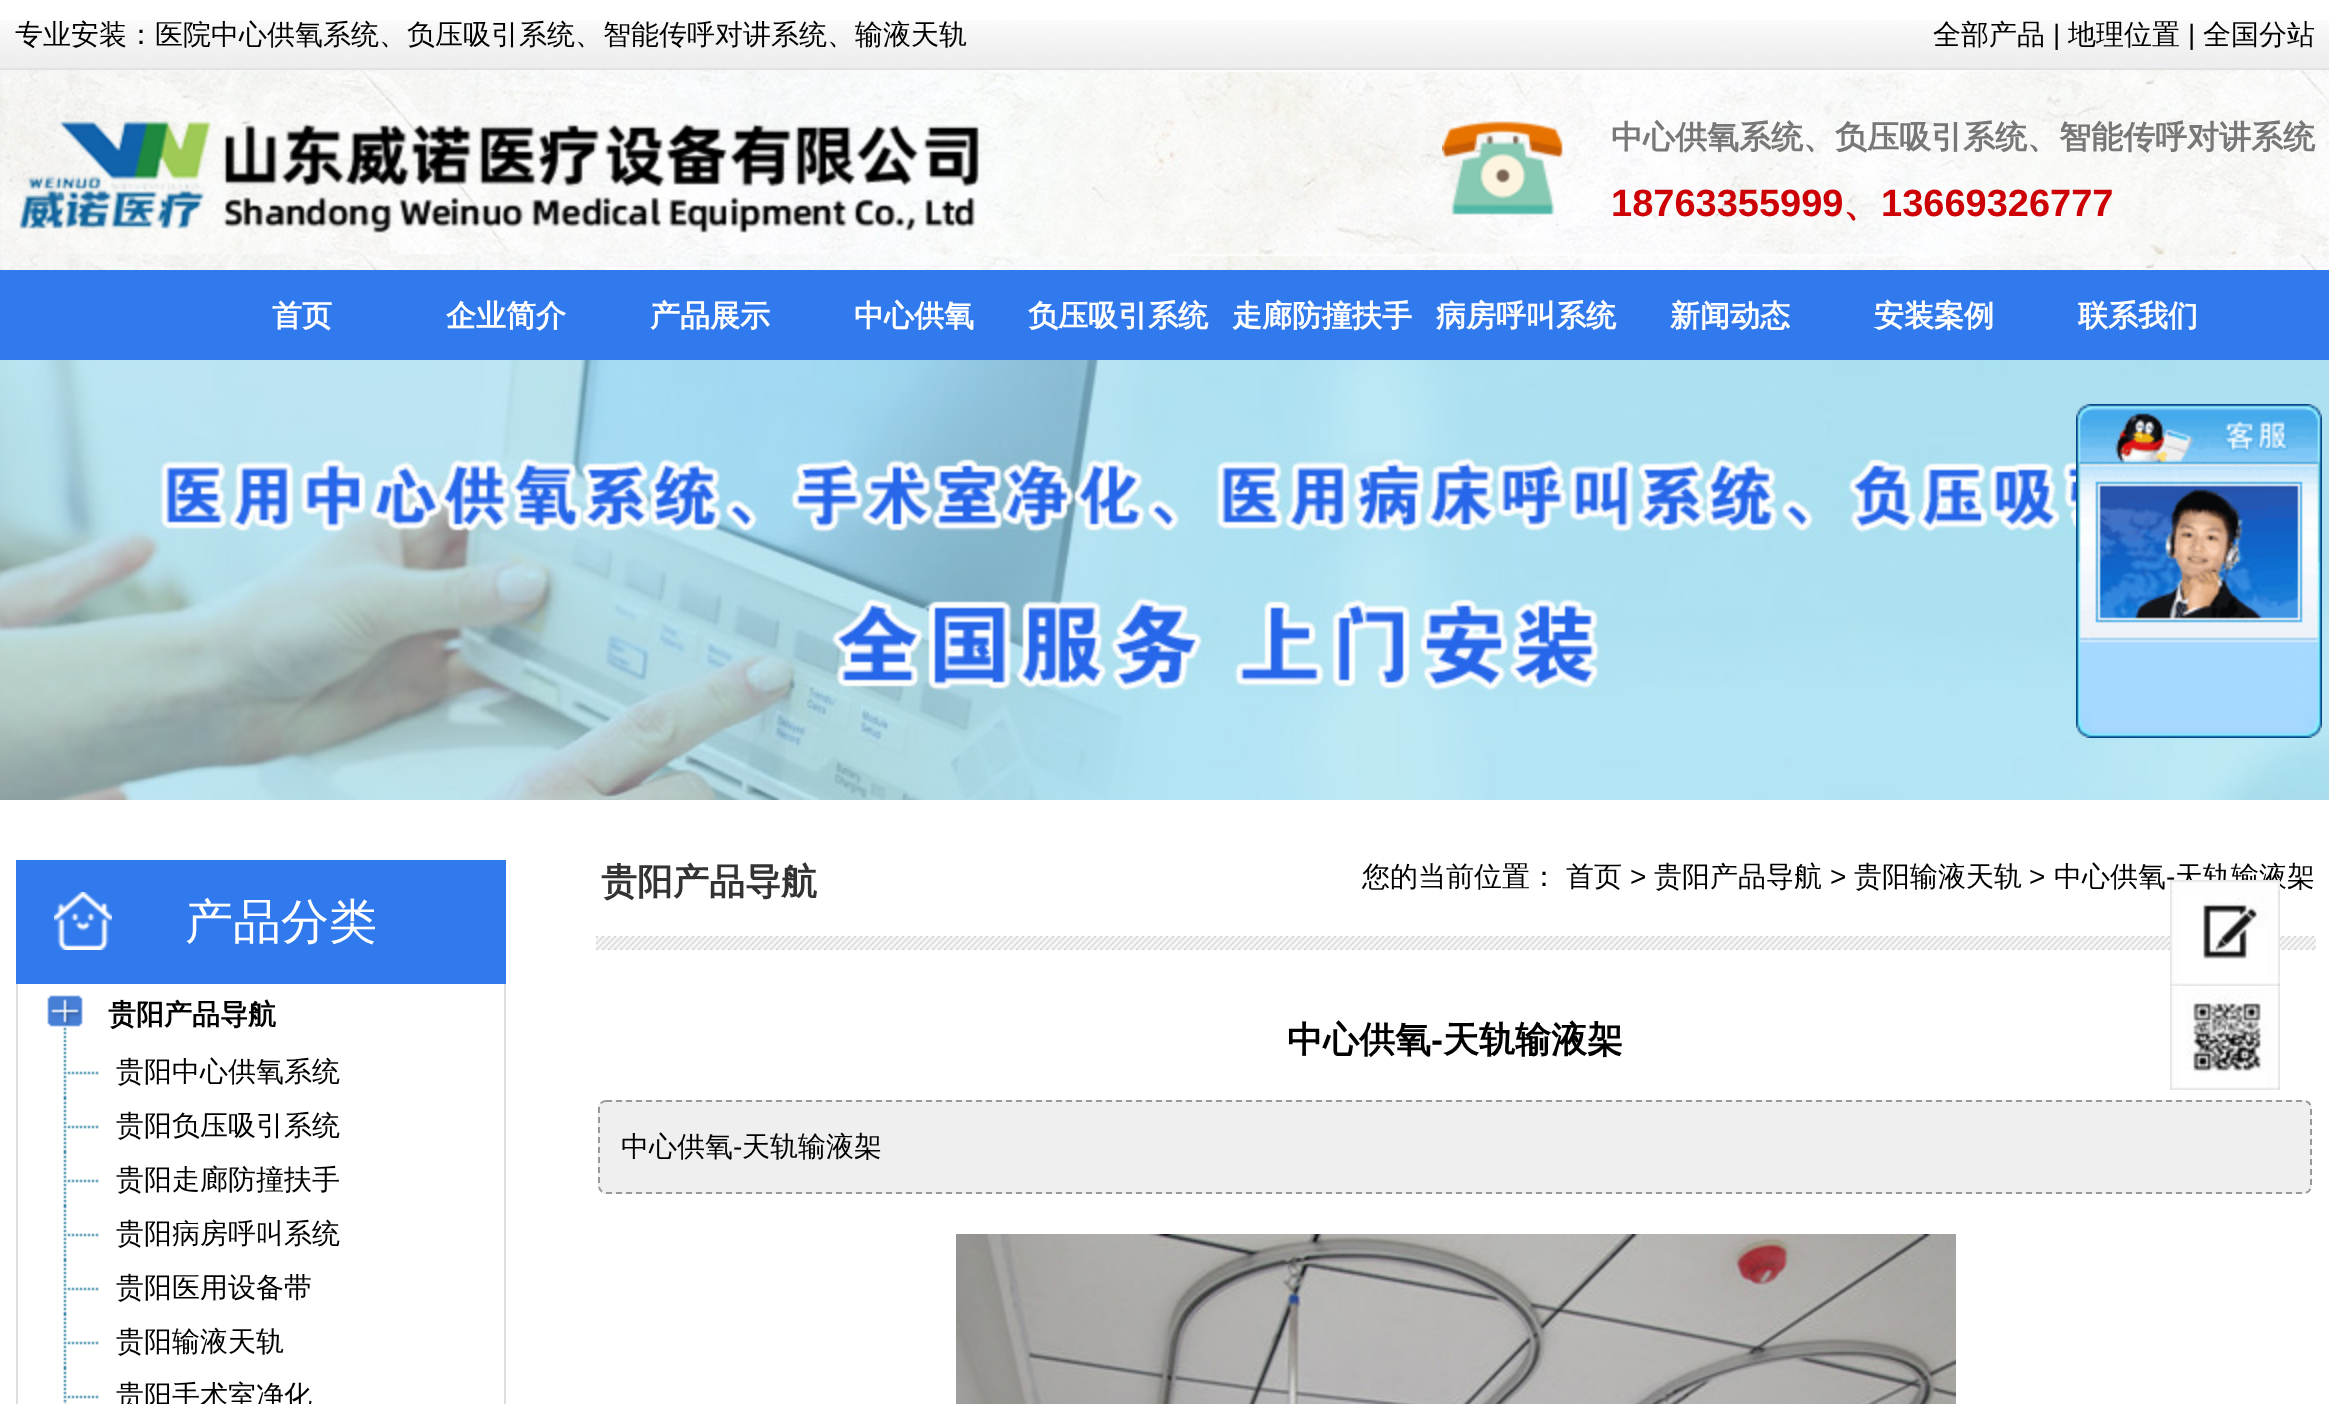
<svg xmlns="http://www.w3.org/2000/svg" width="2329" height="1404">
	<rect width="100%" height="100%" fill="#FFFFFF" />
	<image x="0" y="20" width="2329" height="50" href="assets/img1.png" />
	<g font-family="WenQuanYi Zen Hei" font-size="28" font-weight="500" fill="#000000">
		<text x="15" y="44">专业安装：医院中心供氧系统、负压吸引系统、智能传呼对讲系统、输液天轨</text>
		<text x="1933" y="44">全部产品</text>
	</g>
	<text x="2053" y="44" font-family="Liberation Sans" font-size="28" fill="#000000">|</text>
	<text x="2068" y="44" font-family="WenQuanYi Zen Hei" font-size="28" font-weight="500" fill="#000000">地理位置</text>
	<text x="2188" y="44" font-family="Liberation Sans" font-size="28" fill="#000000">|</text>
	<text x="2203" y="44" font-family="WenQuanYi Zen Hei" font-size="28" font-weight="500" fill="#000000">全国分站</text>
	<image x="0" y="70" width="2329" height="200" href="assets/img2.png" />
	<image x="19" y="121" width="960" height="112" href="assets/img3.png" />
	<image x="1442" y="121" width="121" height="94" href="assets/img4.png" />
	<text x="1611" y="148" font-family="WenQuanYi Zen Hei" font-size="32" font-weight="700" fill="#777777">中心供氧系统、负压吸引系统、智能传呼对讲系统</text>
	<text x="1611" y="216" font-family="Liberation Sans" font-size="38" font-weight="700" fill="#CC0005">18763355999</text>
	<text x="1843" y="216" font-family="WenQuanYi Zen Hei" font-size="38" font-weight="700" fill="#CC0005">、</text>
	<text x="1881" y="216" font-family="Liberation Sans" font-size="38" font-weight="700" fill="#CC0005">13669326777</text>
	<rect x="0" y="270" width="2329" height="90" fill="#317AED" />
	<g font-family="WenQuanYi Zen Hei" font-size="30" font-weight="700" fill="#FFFFFF">
		<text x="272" y="326">首页</text>
		<text x="446" y="326">企业简介</text>
		<text x="650" y="326">产品展示</text>
		<text x="854" y="326">中心供氧</text>
		<text x="1028" y="326">负压吸引系统</text>
		<text x="1232" y="326">走廊防撞扶手</text>
		<text x="1436" y="326">病房呼叫系统</text>
		<text x="1670" y="326">新闻动态</text>
		<text x="1874" y="326">安装案例</text>
		<text x="2078" y="326">联系我们</text>
	</g>
	<image x="0" y="360" width="2329" height="440" href="assets/img5.png" />
	<image x="2076" y="404" width="246" height="250" href="assets/img6.png" />
	<image x="2076" y="654" width="246" height="60" href="assets/img7.png" />
	<image x="2076" y="714" width="246" height="24" href="assets/img8.png" />
	<rect x="16" y="860" width="490" height="124" fill="#317AED" />
	<image x="54" y="892" width="58" height="58" href="assets/img9.png" />
	<text x="185" y="938" font-family="WenQuanYi Zen Hei" font-size="48" font-weight="500" fill="#FFFFFF">产品分类</text>
	<rect x="504" y="984" width="2" height="420" fill="#DDDDDD" />
	<rect x="16" y="984" width="2" height="420" fill="#DDDDDD" />
	<image x="47" y="995" width="36" height="48" href="assets/img10.png" />
	<text x="108" y="1024" font-family="WenQuanYi Zen Hei" font-size="28" font-weight="700" fill="#000000">贵阳产品导航</text>
	<image x="63" y="1044" width="36" height="54" href="assets/img11.png" />
	<text x="116" y="1081" font-family="WenQuanYi Zen Hei" font-size="28" font-weight="500" fill="#000000">贵阳中心供氧系统</text>
	<image x="63" y="1098" width="36" height="54" href="assets/img11.png" />
	<text x="116" y="1135" font-family="WenQuanYi Zen Hei" font-size="28" font-weight="500" fill="#000000">贵阳负压吸引系统</text>
	<image x="63" y="1152" width="36" height="54" href="assets/img11.png" />
	<text x="116" y="1189" font-family="WenQuanYi Zen Hei" font-size="28" font-weight="500" fill="#000000">贵阳走廊防撞扶手</text>
	<image x="63" y="1206" width="36" height="54" href="assets/img11.png" />
	<text x="116" y="1243" font-family="WenQuanYi Zen Hei" font-size="28" font-weight="500" fill="#000000">贵阳病房呼叫系统</text>
	<image x="63" y="1260" width="36" height="54" href="assets/img11.png" />
	<text x="116" y="1297" font-family="WenQuanYi Zen Hei" font-size="28" font-weight="500" fill="#000000">贵阳医用设备带</text>
	<image x="63" y="1314" width="36" height="54" href="assets/img11.png" />
	<text x="116" y="1351" font-family="WenQuanYi Zen Hei" font-size="28" font-weight="500" fill="#000000">贵阳输液天轨</text>
	<image x="63" y="1368" width="36" height="36" href="assets/img12.png" />
	<text x="116" y="1405" font-family="WenQuanYi Zen Hei" font-size="28" font-weight="500" fill="#000000">贵阳手术室净化</text>
	<image x="596" y="936" width="1720" height="14" href="assets/img13.png" />
	<text x="601" y="894" font-family="WenQuanYi Zen Hei" font-size="36" font-weight="700" fill="#333333">贵阳产品导航</text>
	<g font-family="WenQuanYi Zen Hei" font-size="28" font-weight="500" fill="#000000">
		<text x="1362" y="886">您的当前位置：</text>
		<text x="1566" y="886">首页</text>
	</g>
	<text x="1630" y="886" font-family="Liberation Sans" font-size="28" fill="#000000">&gt;</text>
	<text x="1654" y="886" font-family="WenQuanYi Zen Hei" font-size="28" font-weight="500" fill="#000000">贵阳产品导航</text>
	<text x="1830" y="886" font-family="Liberation Sans" font-size="28" fill="#000000">&gt;</text>
	<text x="1854" y="886" font-family="WenQuanYi Zen Hei" font-size="28" font-weight="500" fill="#000000">贵阳输液天轨</text>
	<text x="2029" y="886" font-family="Liberation Sans" font-size="28" fill="#000000">&gt;</text>
	<text x="2054" y="886" font-family="WenQuanYi Zen Hei" font-size="28" font-weight="500" fill="#000000">中心供氧</text>
	<text x="2166" y="886" font-family="Liberation Sans" font-size="28" fill="#000000">-</text>
	<text x="2175" y="886" font-family="WenQuanYi Zen Hei" font-size="28" font-weight="500" fill="#000000">天轨输液架</text>
	<text x="1287" y="1052" font-family="WenQuanYi Zen Hei" font-size="36" font-weight="700" fill="#000000">中心供氧</text>
	<text x="1431" y="1052" font-family="Liberation Sans" font-size="36" font-weight="700" fill="#000000">-</text>
	<text x="1443" y="1052" font-family="WenQuanYi Zen Hei" font-size="36" font-weight="700" fill="#000000">天轨输液架</text>
	<rect x="598" y="1100" width="1714" height="94" rx="8" fill="#EFEFEF" />
	<path d="M606 1101H2304C2308 1101 2311 1104 2311 1108V1186C2311 1190 2308 1193 2304 1193H606C602 1193 599 1190 599 1186V1108C599 1104 602 1101 606 1101Z" fill="none" stroke="#999999" stroke-width="2" stroke-dasharray="6 4" />
	<text x="621" y="1156" font-family="WenQuanYi Zen Hei" font-size="28" font-weight="500" fill="#000000">中心供氧</text>
	<text x="733" y="1156" font-family="Liberation Sans" font-size="28" fill="#000000">-</text>
	<text x="742" y="1156" font-family="WenQuanYi Zen Hei" font-size="28" font-weight="500" fill="#000000">天轨输液架</text>
	<image x="956" y="1234" width="1000" height="170" href="assets/img14.png" />
	<image x="2170" y="880" width="110" height="106" href="assets/img15.png" />
	<image x="2170" y="986" width="110" height="104" href="assets/img16.png" />
</svg>
